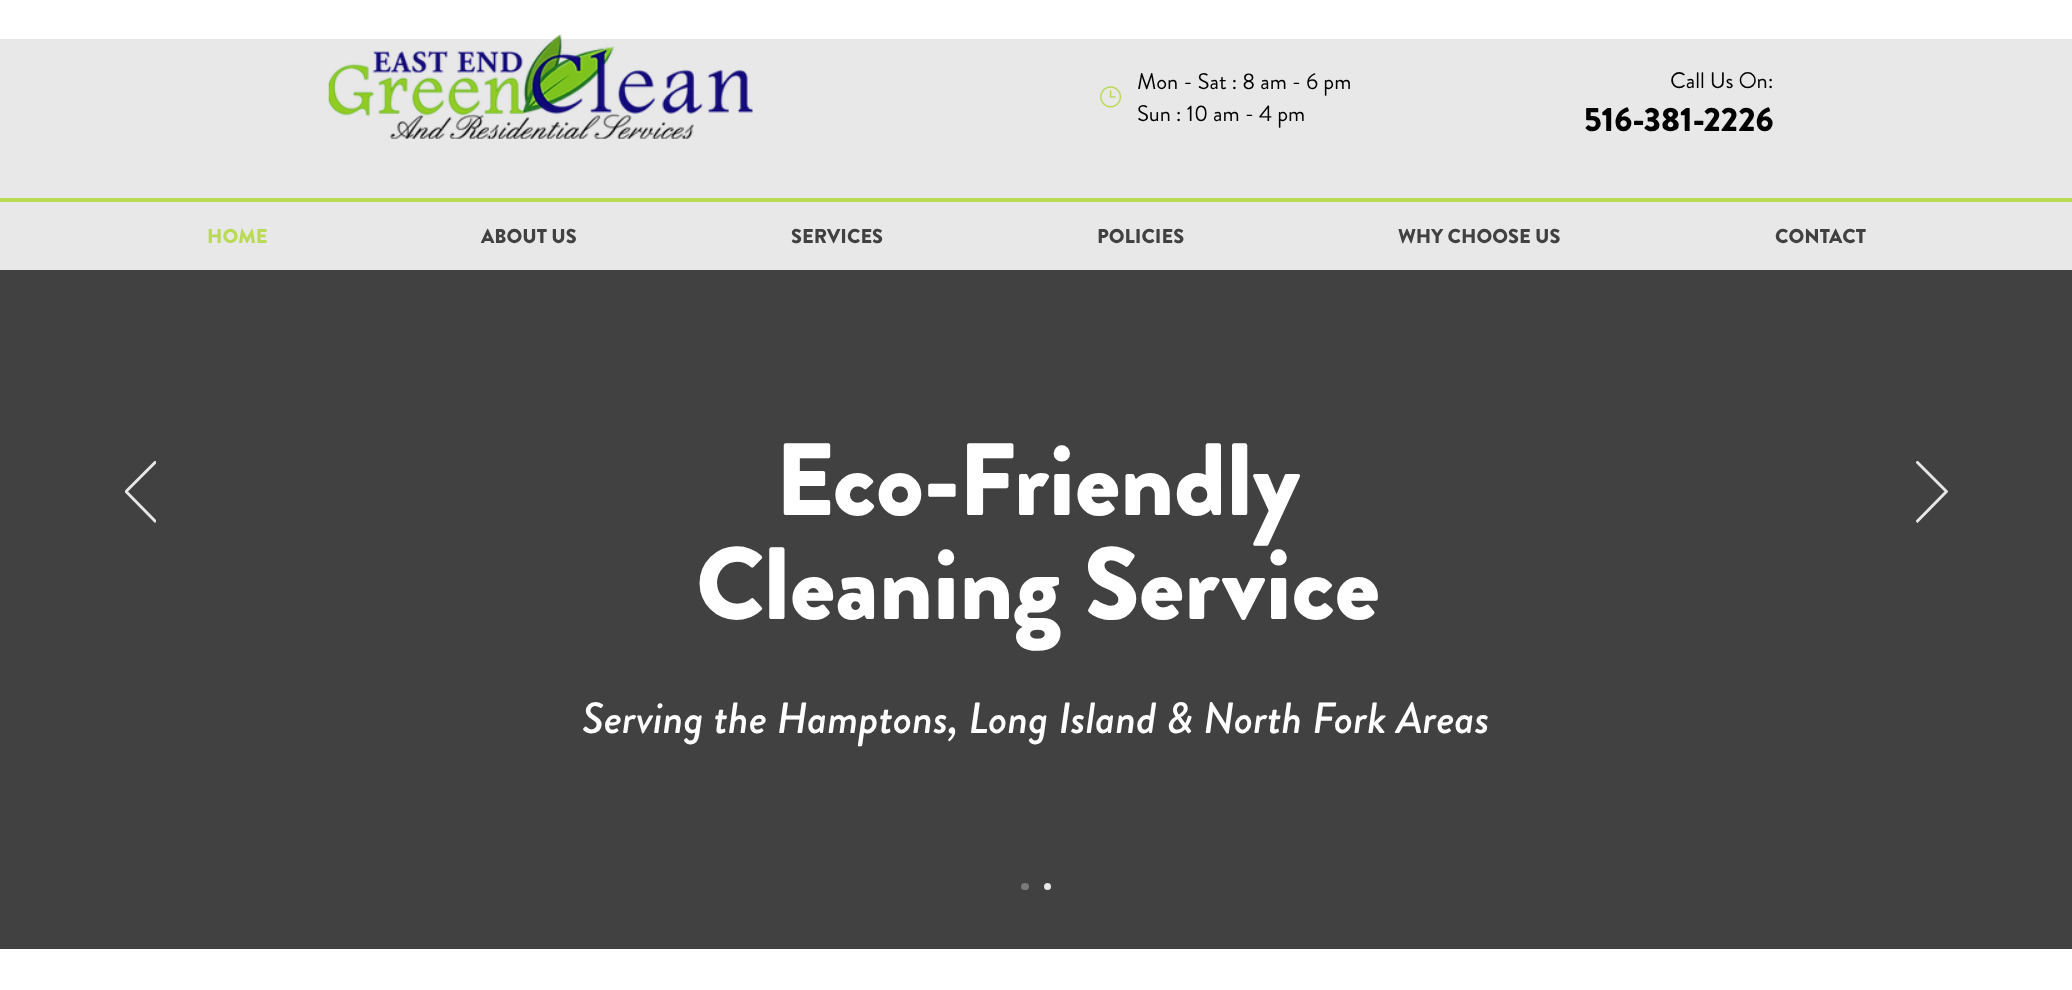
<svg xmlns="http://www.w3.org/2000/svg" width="2072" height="990">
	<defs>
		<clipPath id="clip1"><rect x="125" y="461" width="31" height="62" /></clipPath>
		<clipPath id="clip2"><rect x="1916" y="461" width="32" height="62" /></clipPath>
	</defs>
	<rect width="100%" height="100%" fill="#FFFFFF" />
	<rect x="0" y="39" width="2072" height="231" fill="#E8E8E8" />
	<image x="328" y="34" width="425" height="105" href="assets/img1.png" />
	<image x="1100" y="86" width="22" height="22" href="assets/img2.png" />
	<g font-family="Brandon Grotesque" font-size="22.5" fill="#000000">
		<text x="1137" y="89">Mon - Sat : 8 am - 6 pm</text>
		<text x="1137" y="121">Sun : 10 am - 4 pm</text>
		<text x="1670" y="88">Call Us On:</text>
	</g>
	<text x="1584" y="131" font-family="Brandon Grotesque" font-size="33.75" font-weight="900" fill="#000000">516-381-2226</text>
	<rect x="0" y="198" width="2072" height="4" fill="#BADA55" />
	<text x="207" y="243" font-family="Brandon Grotesque" font-size="20" font-weight="900" fill="#BADA55">HOME</text>
	<g font-family="Brandon Grotesque" font-size="20" font-weight="900" fill="#414141">
		<text x="481" y="243">ABOUT US</text>
		<text x="791" y="243">SERVICES</text>
		<text x="1097" y="243">POLICIES</text>
		<text x="1398" y="243">WHY CHOOSE US</text>
		<text x="1775" y="243">CONTACT</text>
	</g>
	<rect x="0" y="270" width="2072" height="679" fill="#414141" />
	<g clip-path="url(#clip1)">
		<path d="M155 522L125 491.5L155 461.5L156 462.5L127 491.5L156 521Z" fill="none" stroke="#E8E6E6" stroke-width="1.5" />
	</g>
	<g font-family="Brandon Grotesque" font-size="102.5" font-weight="900" fill="#FFFFFF">
		<text x="775" y="515">Eco-Friendly</text>
		<text x="696" y="619">Cleaning Service</text>
	</g>
	<text x="582" y="733" font-family="Brandon Grotesque" font-size="43.75" font-weight="500" font-style="italic" fill="#FFFFFF">Serving the Hamptons, Long Island &amp; North Fork Areas</text>
	<g clip-path="url(#clip2)">
		<path d="M1917.5 522L1947.5 491.5L1917.5 461.5L1916.5 462.5L1945.5 491.5L1916.5 521Z" fill="none" stroke="#E8E6E6" stroke-width="1.5" />
	</g>
	<rect x="1021" y="883" width="8" height="7" rx="3.5" fill="#7A7A7A" />
	<circle cx="1047.5" cy="886.5" r="3.5" fill="#E8E6E6" />
</svg>
